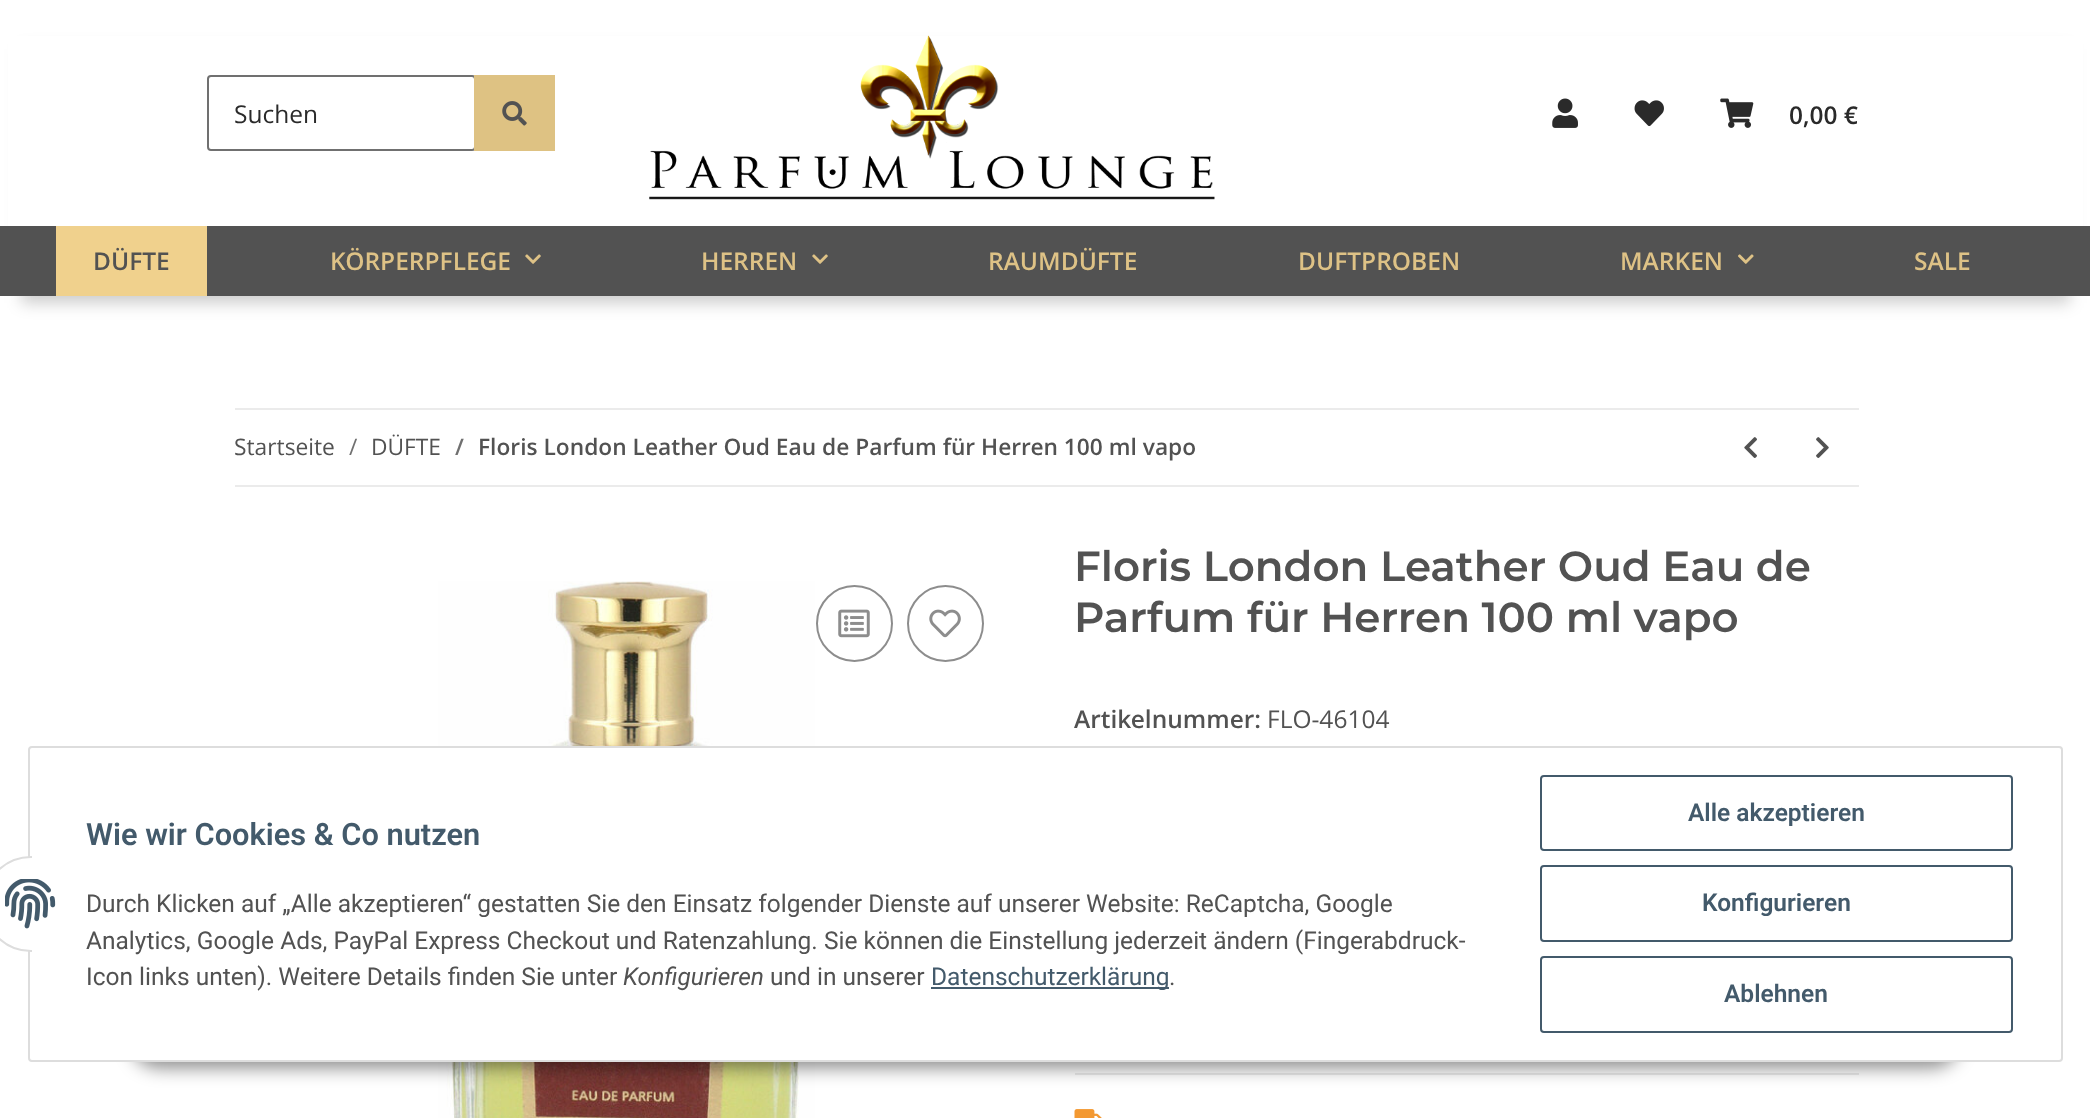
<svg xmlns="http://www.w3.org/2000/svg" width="2090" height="1118">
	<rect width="100%" height="100%" fill="#FFFFFF" />
	<rect x="21" y="49" width="2049" height="254" fill="#000000" fill-opacity="0.2" filter="blur(8px)" />
	<rect x="8" y="36" width="2075" height="190" fill="#FFFFFF" />
	<rect x="208" y="76" width="267" height="74" rx="3" fill="none" stroke="#707070" stroke-width="2" />
	<text x="234" y="123" font-family="Open Sans" font-size="24.5" fill="#2A2A2A">Suchen</text>
	<rect x="474" y="75" width="81" height="76" fill="#DEC283" />
	<image x="502" y="101" width="25" height="25" href="assets/img1.png" />
	<image x="649" y="35" width="566" height="165" href="assets/img2.png" />
	<image x="1552" y="98" width="26" height="30" href="assets/img3.png" />
	<image x="1634" y="100" width="30" height="27" href="assets/img4.png" />
	<image x="1720" y="98" width="34" height="30" href="assets/img5.png" />
	<text x="1789" y="124" font-family="Open Sans" font-size="24.5" font-weight="600" fill="#2A2A2A">0,00 €</text>
	<rect x="0" y="226" width="2090" height="70" fill="#525252" />
	<rect x="56" y="226" width="151" height="70" fill="#F0D18D" />
	<text x="93" y="270" font-family="Open Sans" font-size="24.5" font-weight="600" fill="#525252">DÜFTE</text>
	<text x="330" y="270" font-family="Open Sans" font-size="24.5" font-weight="600" fill="#DEC286">KÖRPERPFLEGE</text>
	<image x="525" y="254" width="16" height="10" href="assets/img6.png" />
	<text x="701" y="270" font-family="Open Sans" font-size="24.5" font-weight="600" fill="#DEC286">HERREN</text>
	<image x="812" y="254" width="16" height="10" href="assets/img6.png" />
	<g font-family="Open Sans" font-size="24.5" font-weight="600" fill="#DEC286">
		<text x="988" y="270">RAUMDÜFTE</text>
		<text x="1298" y="270">DUFTPROBEN</text>
		<text x="1620" y="270">MARKEN</text>
	</g>
	<image x="1738" y="254" width="16" height="10" href="assets/img7.png" />
	<text x="1914" y="270" font-family="Open Sans" font-size="24.5" font-weight="600" fill="#DEC286">SALE</text>
	<rect x="235" y="408" width="1624" height="2" fill="#EBEBEB" />
	<rect x="235" y="485" width="1624" height="2" fill="#EBEBEB" />
	<text x="234" y="455" font-family="Open Sans" font-size="22.75" fill="#525252">Startseite</text>
	<text x="349" y="455" font-family="Open Sans" font-size="22.75" fill="#707070">/</text>
	<text x="371" y="455" font-family="Open Sans" font-size="22.75" fill="#525252">DÜFTE</text>
	<text x="455" y="455" font-family="Open Sans" font-size="22.75" font-weight="600" fill="#707070">/</text>
	<text x="478" y="455" font-family="Open Sans" font-size="22.75" font-weight="600" fill="#525252">Floris London Leather Oud Eau de Parfum für Herren 100 ml vapo</text>
	<image x="1744" y="437" width="13" height="21" href="assets/img8.png" />
	<image x="1816" y="437" width="13" height="21" href="assets/img9.png" />
	<image x="438" y="581" width="377" height="537" href="assets/img10.png" />
	<circle cx="854.5" cy="623.5" r="37.5" fill="none" stroke="#8D8D8D" stroke-width="2" />
	<image x="838" y="609" width="32" height="29" href="assets/img11.png" />
	<circle cx="945.5" cy="623.5" r="37.5" fill="none" stroke="#8D8D8D" stroke-width="2" />
	<image x="929" y="609" width="32" height="29" href="assets/img12.png" />
	<g font-family="Montserrat" font-size="42" font-weight="600" fill="#525252">
		<text x="1074" y="581">Floris London Leather Oud Eau de</text>
		<text x="1074" y="632">Parfum für Herren 100 ml vapo</text>
	</g>
	<text x="1074" y="728" font-family="Open Sans" font-size="24.5" font-weight="600" fill="#525252">Artikelnummer:</text>
	<text x="1267" y="728" font-family="Open Sans" font-size="24.5" fill="#525252">FLO-46104</text>
	<rect x="1075" y="1073" width="784" height="2" fill="#EBEBEB" />
	<image x="1074" y="1109" width="28" height="9" href="assets/img13.png" />
	<rect x="131" y="1012" width="1829" height="56" rx="28" fill="#000000" fill-opacity="0.45" filter="blur(9px)" />
	<rect x="29" y="747" width="2033" height="314" rx="3" fill="#FFFFFF" stroke="#DDDDDD" stroke-width="2" />
	<circle cx="31" cy="904" r="47" fill="#FFFFFF" stroke="#DDDDDD" stroke-width="2" />
	<rect x="32" y="856" width="47" height="96" fill="#FFFFFF" />
	<image x="5" y="879" width="51" height="50" href="assets/img14.png" />
	<text x="86" y="845" font-family="Roboto" font-size="30.75" font-weight="600" fill="#435A6B">Wie wir Cookies &amp; Co nutzen</text>
	<g font-family="Roboto" font-size="24.5" fill="#525252">
		<text x="86" y="912">Durch Klicken auf „Alle akzeptieren“ gestatten Sie den Einsatz folgender Dienste auf unserer Website: ReCaptcha, Google</text>
		<text x="86" y="949">Analytics, Google Ads, PayPal Express Checkout und Ratenzahlung. Sie können die Einstellung jederzeit ändern (Fingerabdruck-</text>
		<text x="86" y="985">Icon links unten). Weitere Details finden Sie unter</text>
	</g>
	<text x="623" y="985" font-family="Roboto" font-size="24.5" font-style="italic" fill="#525252">Konfigurieren</text>
	<text x="770" y="985" font-family="Roboto" font-size="24.5" fill="#525252">und in unserer</text>
	<rect x="931" y="987" width="238" height="2" fill="#435A6B" />
	<text x="931" y="985" font-family="Roboto" font-size="24.5" fill="#435A6B">Datenschutzerklärung</text>
	<text x="1169" y="985" font-family="Roboto" font-size="24.5" fill="#525252">.</text>
	<rect x="1541" y="776" width="471" height="74" rx="3" fill="none" stroke="#435A6B" stroke-width="2" />
	<text x="1688" y="821" font-family="Roboto" font-size="24.5" font-weight="600" fill="#435A6B">Alle akzeptieren</text>
	<rect x="1541" y="866" width="471" height="75" rx="3" fill="none" stroke="#435A6B" stroke-width="2" />
	<text x="1702" y="911" font-family="Roboto" font-size="24.5" font-weight="600" fill="#435A6B">Konfigurieren</text>
	<rect x="1541" y="957" width="471" height="75" rx="3" fill="none" stroke="#435A6B" stroke-width="2" />
	<text x="1724" y="1002" font-family="Roboto" font-size="24.5" font-weight="600" fill="#435A6B">Ablehnen</text>
</svg>
